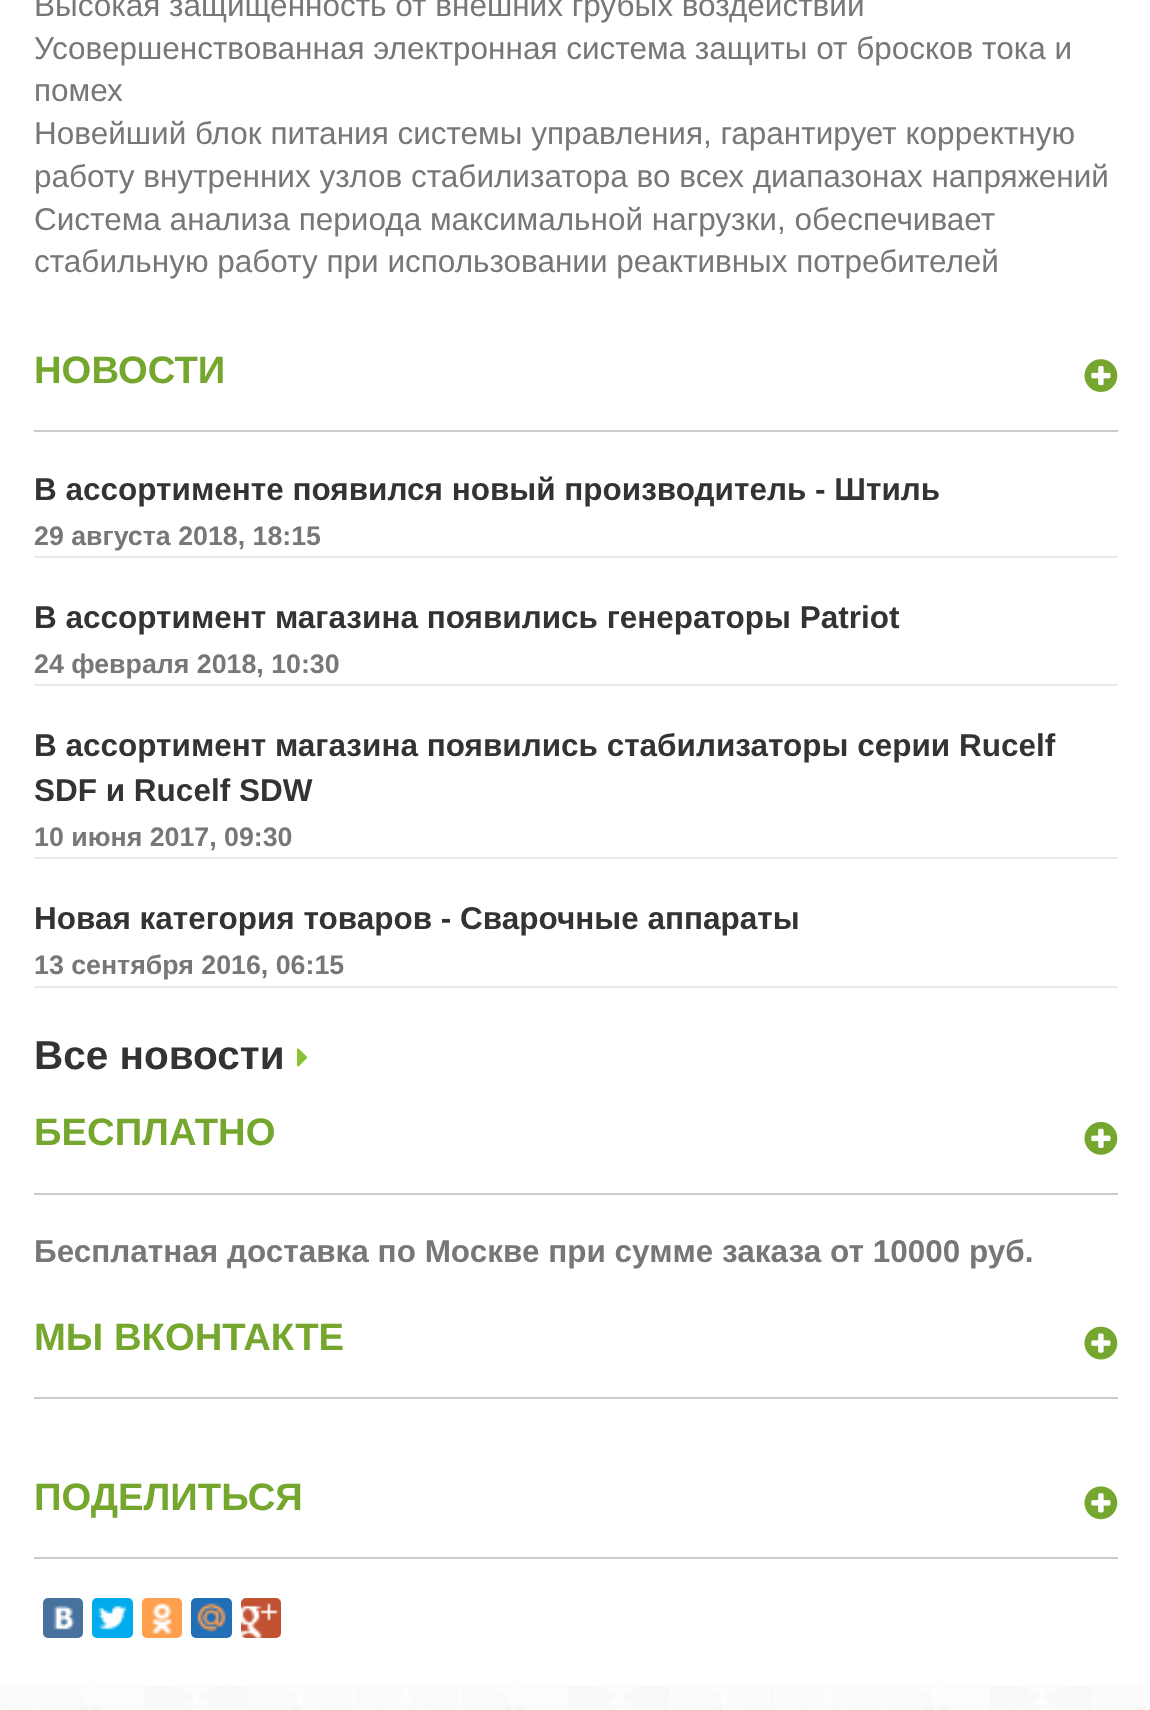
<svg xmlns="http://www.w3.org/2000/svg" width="1150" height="1710">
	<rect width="100%" height="100%" fill="#FFFFFF" />
	<image x="0" y="1685" width="1150" height="25" href="assets/img1.png" />
	<g font-family="Liberation Sans" font-size="31.5" fill="#777777">
		<text x="34" y="16">Высокая защищенность от внешних грубых воздействий</text>
		<text x="34" y="59">Усовершенствованная электронная система защиты от бросков тока и</text>
		<text x="34" y="101">помех</text>
		<text x="34" y="144">Новейший блок питания системы управления, гарантирует корректную</text>
		<text x="34" y="187">работу внутренних узлов стабилизатора во всех диапазонах напряжений</text>
		<text x="34" y="230">Система анализа периода максимальной нагрузки, обеспечивает</text>
		<text x="34" y="272">стабильную работу при использовании реактивных потребителей</text>
	</g>
	<rect x="34" y="430" width="1084" height="2" fill="#CBCBCB" />
	<text x="34" y="383" font-family="Liberation Sans" font-size="38.25" font-weight="700" fill="#75A72F">НОВОСТИ</text>
	<image x="1084" y="359" width="34" height="33" href="assets/img2.png" />
	<rect x="34" y="556" width="1084" height="2" fill="#E9E9E9" />
	<text x="34" y="500" font-family="Liberation Sans" font-size="31.5" font-weight="700" fill="#333333">В ассортименте появился новый производитель - Штиль</text>
	<text x="34" y="545" font-family="Liberation Sans" font-size="26.75" font-weight="700" fill="#777777">29 августа 2018, 18:15</text>
	<rect x="34" y="684" width="1084" height="2" fill="#E9E9E9" />
	<text x="34" y="628" font-family="Liberation Sans" font-size="31.5" font-weight="700" fill="#333333">В ассортимент магазина появились генераторы Patriot</text>
	<text x="34" y="673" font-family="Liberation Sans" font-size="26.75" font-weight="700" fill="#777777">24 февраля 2018, 10:30</text>
	<rect x="34" y="857" width="1084" height="2" fill="#E9E9E9" />
	<g font-family="Liberation Sans" font-size="31.5" font-weight="700" fill="#333333">
		<text x="34" y="756">В ассортимент магазина появились стабилизаторы серии Rucelf</text>
		<text x="34" y="801">SDF и Rucelf SDW</text>
	</g>
	<text x="34" y="846" font-family="Liberation Sans" font-size="26.75" font-weight="700" fill="#777777">10 июня 2017, 09:30</text>
	<rect x="34" y="986" width="1084" height="2" fill="#E9E9E9" />
	<text x="34" y="929" font-family="Liberation Sans" font-size="31.5" font-weight="700" fill="#333333">Новая категория товаров - Сварочные аппараты</text>
	<text x="34" y="974" font-family="Liberation Sans" font-size="26.75" font-weight="700" fill="#777777">13 сентября 2016, 06:15</text>
	<text x="34" y="1069" font-family="Liberation Sans" font-size="40.5" font-weight="700" fill="#333333">Все новости</text>
	<image x="297" y="1048" width="11" height="19" href="assets/img3.png" />
	<rect x="34" y="1193" width="1084" height="2" fill="#CBCBCB" />
	<text x="34" y="1145" font-family="Liberation Sans" font-size="38.25" font-weight="700" fill="#75A72F">БЕСПЛАТНО</text>
	<image x="1084" y="1121" width="34" height="34" href="assets/img4.png" />
	<text x="34" y="1262" font-family="Liberation Sans" font-size="31.5" font-weight="700" fill="#777777">Бесплатная доставка по Москве при сумме заказа от 10000 руб.</text>
	<rect x="34" y="1397" width="1084" height="2" fill="#CBCBCB" />
	<text x="34" y="1350" font-family="Liberation Sans" font-size="38.25" font-weight="700" fill="#75A72F">МЫ ВКОНТАКТЕ</text>
	<image x="1084" y="1326" width="34" height="34" href="assets/img5.png" />
	<rect x="34" y="1557" width="1084" height="2" fill="#CBCBCB" />
	<text x="34" y="1510" font-family="Liberation Sans" font-size="38.25" font-weight="700" fill="#75A72F">ПОДЕЛИТЬСЯ</text>
	<image x="1084" y="1486" width="34" height="34" href="assets/img6.png" />
	<rect x="43" y="1598" width="40" height="40" rx="5" fill="#48729E" />
	<image x="53" y="1605" width="22" height="25" href="assets/img7.png" />
	<rect x="92" y="1598" width="41" height="40" rx="5" fill="#00ACED" />
	<image x="98" y="1605" width="29" height="25" href="assets/img8.png" />
	<rect x="142" y="1598" width="40" height="40" rx="5" fill="#FF9F4D" />
	<image x="152" y="1603" width="20" height="31" href="assets/img9.png" />
	<rect x="191" y="1598" width="41" height="40" rx="5" fill="#226EB7" />
	<image x="197" y="1603" width="29" height="29" href="assets/img10.png" />
	<rect x="241" y="1598" width="40" height="40" rx="5" fill="#C25234" />
	<image x="241" y="1603" width="37" height="35" href="assets/img11.png" />
</svg>
